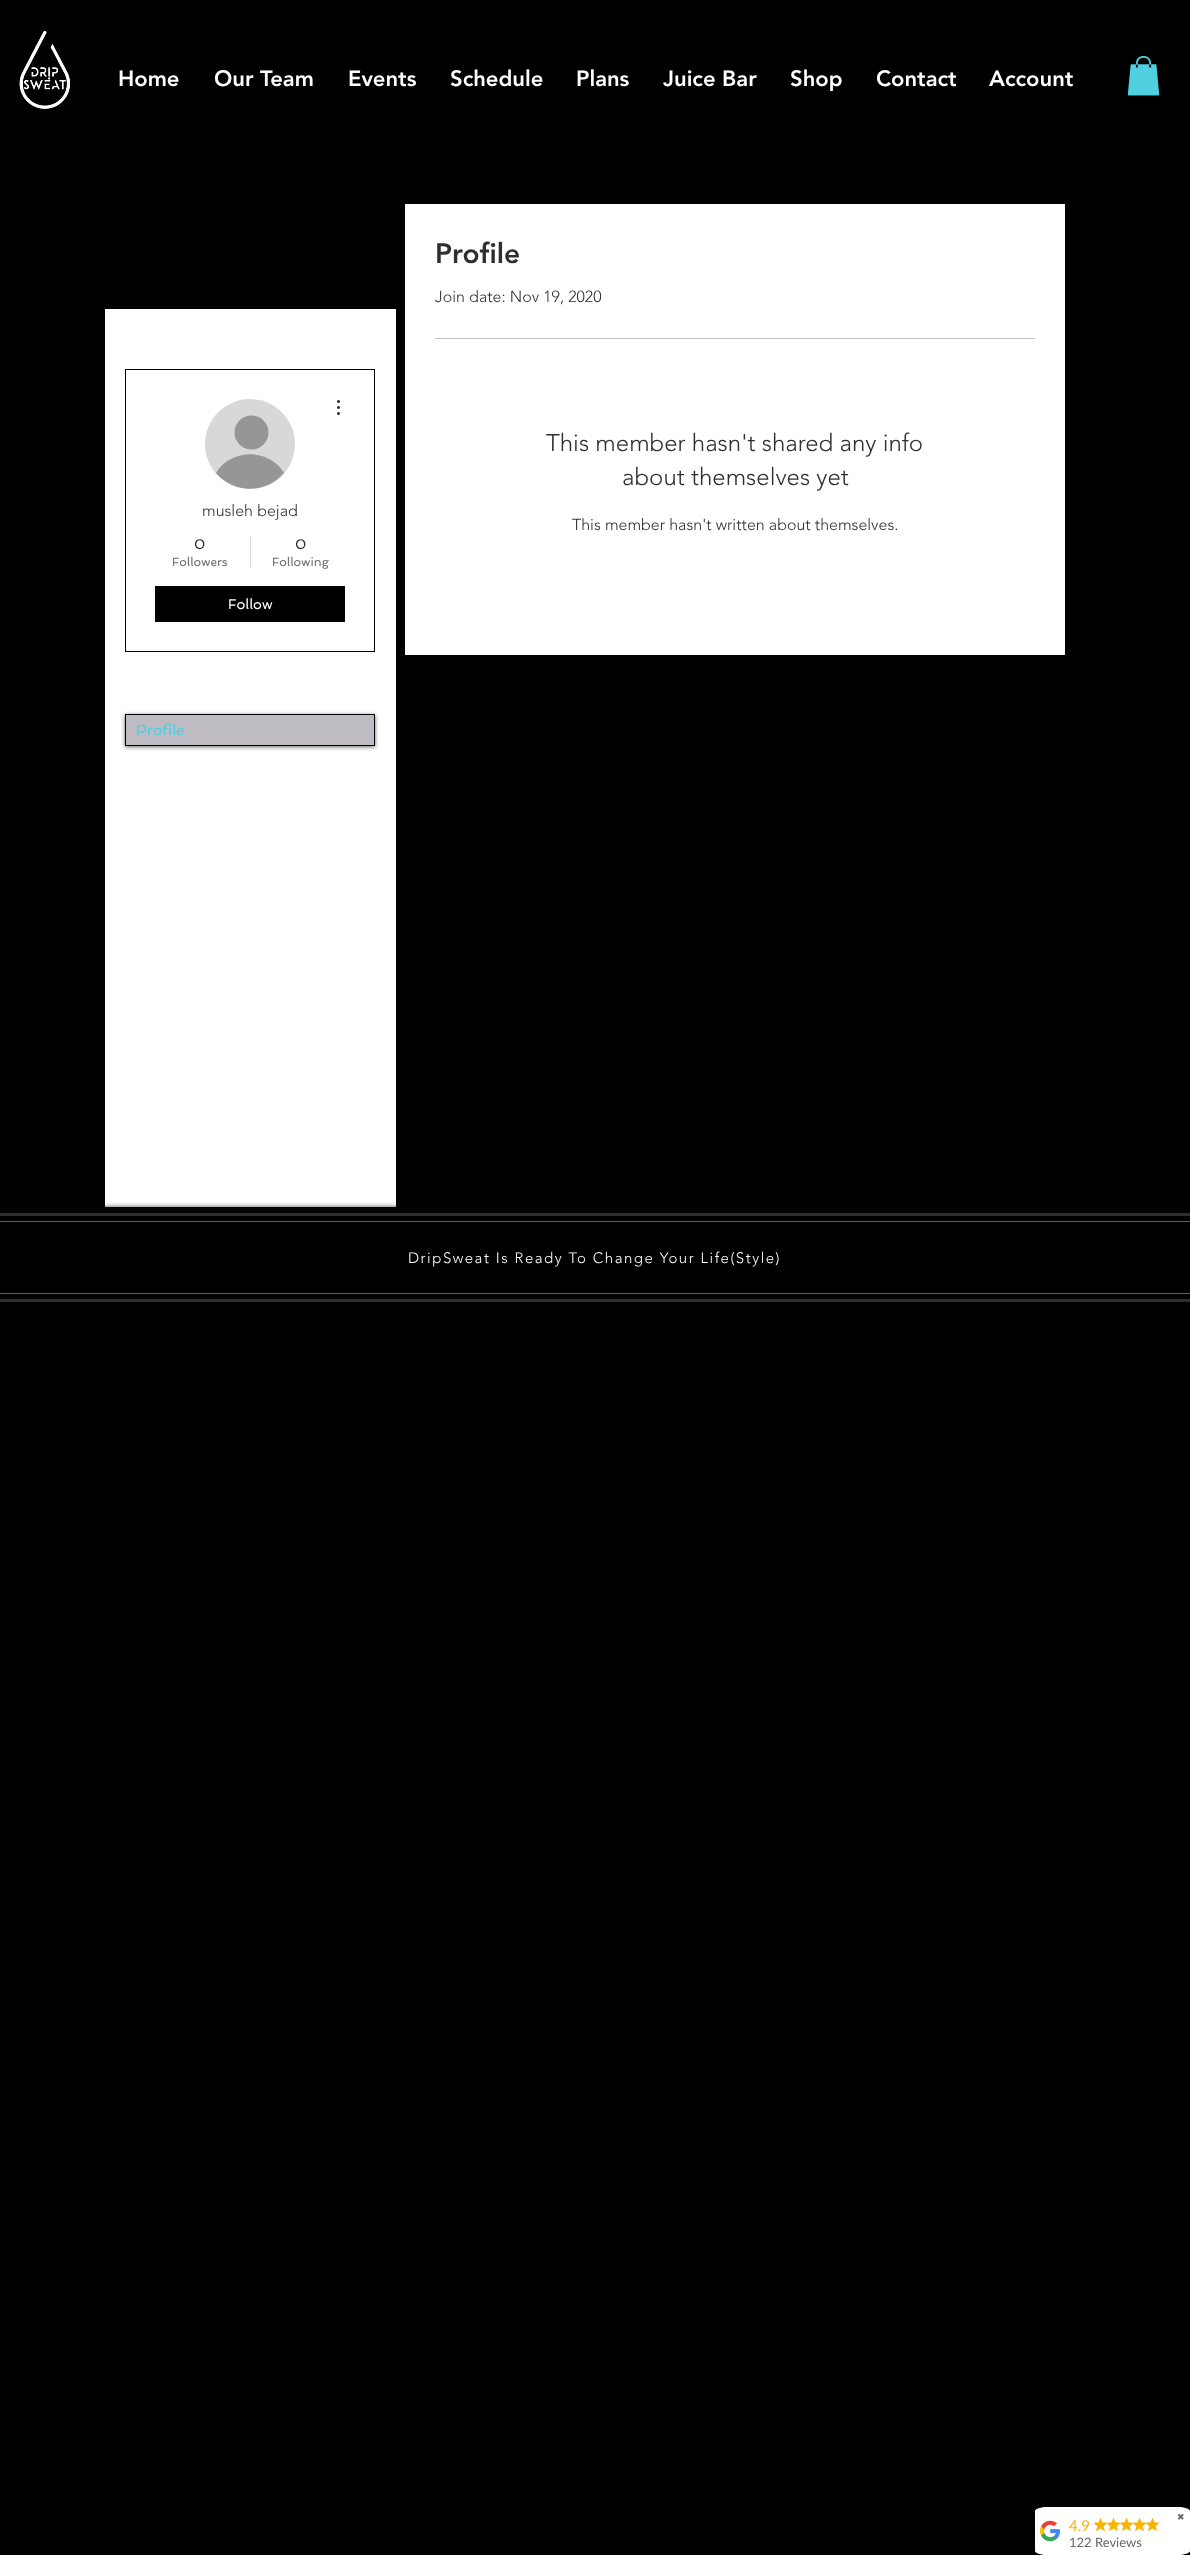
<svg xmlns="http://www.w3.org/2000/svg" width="1190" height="2555">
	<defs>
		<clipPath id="clip1"><path d="M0 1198H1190V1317H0ZM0 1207H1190V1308H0Z" clip-rule="evenodd" /></clipPath>
	</defs>
	<rect width="100%" height="100%" fill="#000000" />
	<image x="16" y="28" width="56" height="83" href="assets/img1.png" />
	<g font-family="'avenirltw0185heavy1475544'" font-size="22" font-weight="900" fill="#FFFFFF">
		<text x="118" y="86">Home</text>
		<text x="214" y="86">Our Team</text>
		<text x="348" y="86">Events</text>
		<text x="450" y="86">Schedule</text>
		<text x="576" y="86">Plans</text>
		<text x="663" y="86">Juice Bar</text>
		<text x="790" y="86">Shop</text>
		<text x="876" y="86">Contact</text>
		<text x="989" y="86">Account</text>
	</g>
	<image x="1127" y="56" width="33" height="40" href="assets/img2.png" />
	<rect x="405" y="204" width="660" height="451" fill="#FFFFFF" />
	<text x="435" y="263" font-family="'avenirltw0185heavy1475544'" font-size="28" font-weight="900" fill="#2F2F30">Profile</text>
	<text x="435" y="302" font-family="'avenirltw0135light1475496'" font-size="16" font-weight="300" fill="#2F2F30">Join date: Nov 19, 2020</text>
	<rect x="435" y="338" width="600" height="1" fill="#C1C1C1" />
	<g font-family="'avenirltw0135light1475496'" font-size="24" font-weight="300" fill="#2F2F30">
		<text x="546" y="451">This member hasn't shared any info</text>
		<text x="622" y="485">about themselves yet</text>
	</g>
	<text x="572" y="530" font-family="'avenirltw0135light1475496'" font-size="16" font-weight="300" fill="#2F2F30">This member hasn't written about themselves.</text>
	<rect x="105" y="309" width="291" height="898" fill="#FFFFFF" />
	<rect x="125.5" y="369.5" width="249" height="282" fill="none" stroke="#000000" />
	<circle cx="250" cy="444" r="45" fill="#D8D8D8" />
	<circle cx="251.5" cy="432.5" r="17" fill="#969696" />
	<path d="M284 473C266 494 234 494 216 473C231 448 269 448 284 473Z" fill="#969696" />
	<image x="337" y="400" width="3" height="15" href="assets/img3.png" />
	<text x="202" y="516" font-family="'avenirltw0135light1475496'" font-size="16" font-weight="300" fill="#2F2F30">musleh bejad</text>
	<text x="194" y="549" font-family="Spinnaker" font-size="14" fill="#2F2F30">0</text>
	<text x="172" y="566" font-family="Spinnaker" font-size="12" fill="#6D6D6E">Followers</text>
	<rect x="250" y="536" width="1" height="32" fill="#D5D5D6" />
	<text x="295" y="549" font-family="Spinnaker" font-size="14" fill="#2F2F30">0</text>
	<text x="272" y="566" font-family="Spinnaker" font-size="12" fill="#6D6D6E">Following</text>
	<rect x="155" y="586" width="190" height="36" fill="#000000" />
	<text x="228" y="609" font-family="Spinnaker" font-size="14" fill="#FFFFFF">Follow</text>
	<rect x="125" y="715" width="250" height="32" fill="#000000" fill-opacity="0.6" filter="blur(2px)" />
	<rect x="125.5" y="714.5" width="249" height="31" fill="#BEBCC2" stroke="#000000" />
	<text x="136" y="735" font-family="Spinnaker" font-size="15" fill="#50CFE0">Profile</text>
	<g clip-path="url(#clip1)">
		<rect x="0" y="1207" width="1190" height="101" fill="#000000" fill-opacity="0.7" filter="blur(2.5px)" />
	</g>
	<rect x="0" y="1213" width="1190" height="3" fill="#2F2F30" />
	<rect x="0" y="1299" width="1190" height="3" fill="#2F2F30" />
	<rect x="0" y="1221" width="1190" height="1" fill="#5F5E61" />
	<rect x="0" y="1293" width="1190" height="1" fill="#5F5E61" />
	<text x="408" y="1263" font-family="'avenirltw0135light1475496'" font-size="15" font-weight="300" letter-spacing="1.5" fill="#FFFFFF">DripSweat Is Ready To Change Your Life(Style)</text>
	<path d="M1047 2507H1178C1184 2507 1190 2509 1190 2511V2551C1190 2553 1184 2555 1178 2555H1047C1041 2555 1035 2553 1035 2551V2511C1035 2509 1041 2507 1047 2507Z" fill="#FFFFFF" />
	<text x="1177" y="2520" font-family="DejaVu Sans" font-size="9" fill="#676767">✖</text>
	<image x="1040" y="2520" width="20" height="22" href="assets/img4.png" />
	<text x="1069" y="2531" font-family="Lato" font-size="15" fill="#F9B403">4.9</text>
	<image x="1094" y="2517" width="13" height="15" href="assets/img5.png" />
	<image x="1107" y="2517" width="13" height="15" href="assets/img5.png" />
	<image x="1120" y="2517" width="13" height="15" href="assets/img5.png" />
	<image x="1133" y="2517" width="13" height="15" href="assets/img5.png" />
	<image x="1146" y="2517" width="13" height="15" href="assets/img6.png" />
	<text x="1069" y="2547" font-family="Lato" font-size="13" fill="#676767">122 Reviews</text>
</svg>
